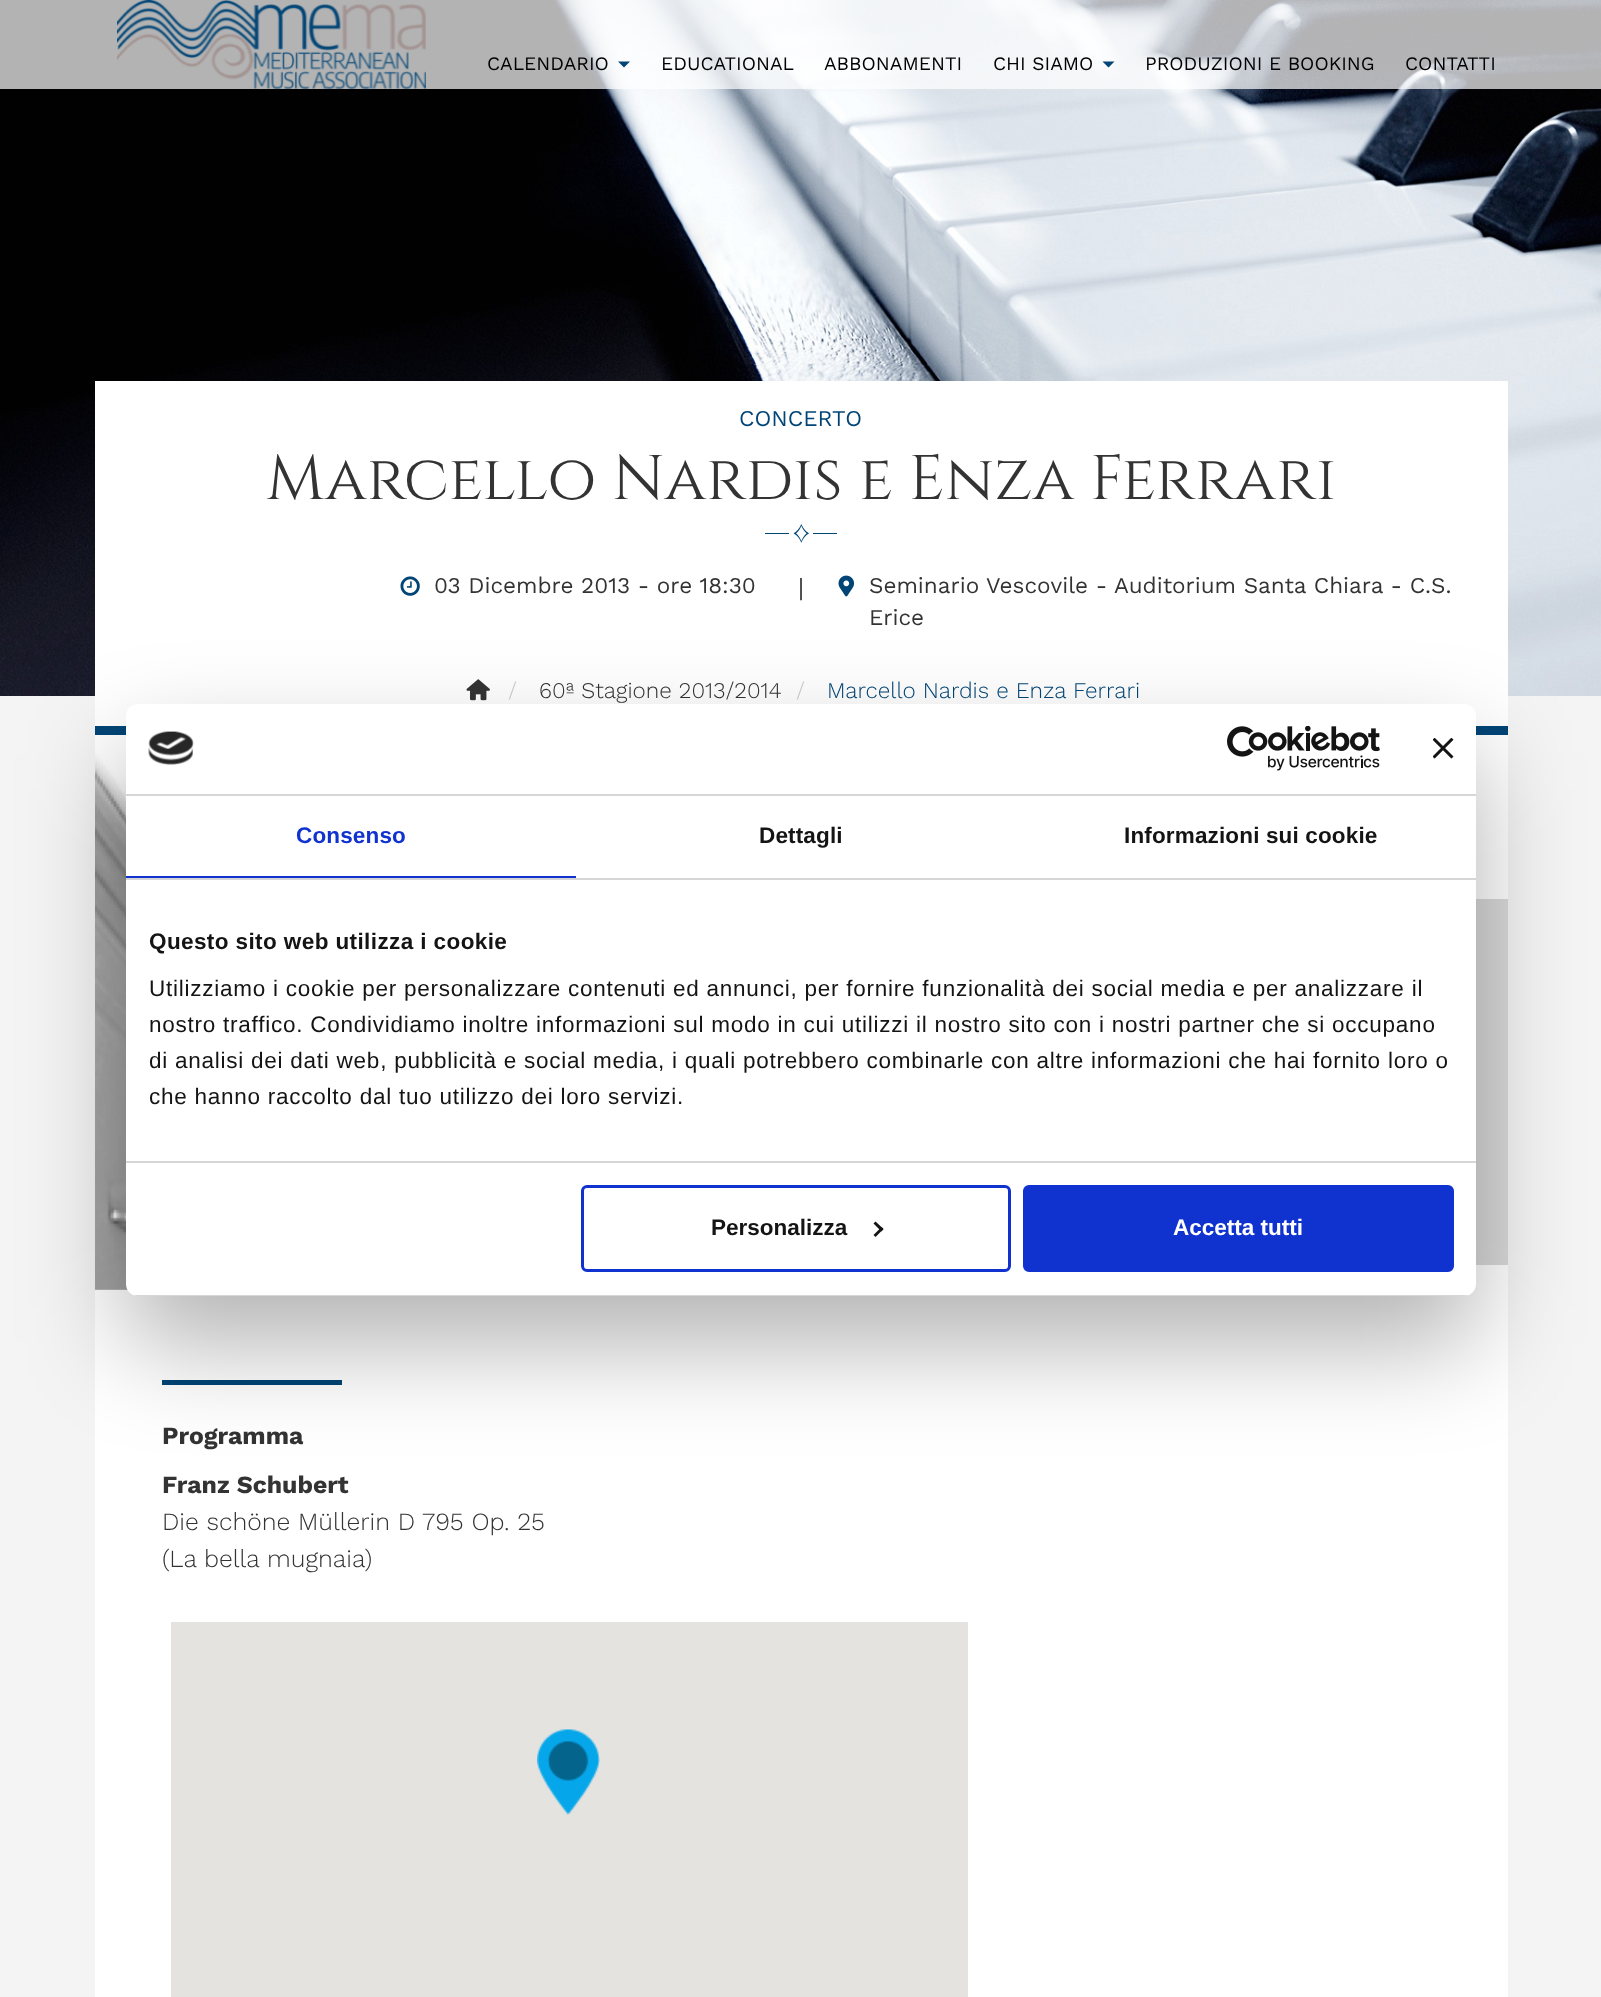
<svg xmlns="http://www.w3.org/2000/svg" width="1601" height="1997">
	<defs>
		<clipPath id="clip1"><rect x="126" y="704" width="1350" height="592" rx="12" /></clipPath>
	</defs>
	<rect width="100%" height="100%" fill="#F4F4F4" />
	<image x="0" y="0" width="1601" height="696" href="assets/img1.png" />
	<rect x="0" y="0" width="1601" height="89" fill="#FFFFFF" fill-opacity="0.7" />
	<image x="117" y="0" width="309" height="89" href="assets/img2.png" />
	<text x="487" y="70" font-family="Work Sans" font-size="19.1" fill="#000000">CALENDARIO</text>
	<path d="M618 61.5H630L624 67.5Z" fill="#004576" />
	<g font-family="Work Sans" font-size="19.1" fill="#000000">
		<text x="661" y="70">EDUCATIONAL</text>
		<text x="824" y="70">ABBONAMENTI</text>
		<text x="993" y="70">CHI SIAMO</text>
	</g>
	<path d="M1102.5 61.5H1114.5L1108.5 67.5Z" fill="#004576" />
	<g font-family="Work Sans" font-size="19.1" fill="#000000">
		<text x="1145" y="70">PRODUZIONI E BOOKING</text>
		<text x="1405" y="70">CONTATTI</text>
	</g>
	<rect x="95" y="381" width="1413" height="345" fill="#FFFFFF" />
	<rect x="95" y="726" width="1413" height="9" fill="#004576" />
	<text x="739" y="426" font-family="Work Sans" font-size="22.5" fill="#004576">CONCERTO</text>
	<text x="266" y="499" font-family="Cinzel" font-size="63" fill="#333333">Marcello Nardis e Enza Ferrari</text>
	<image x="765" y="524" width="72" height="19" href="assets/img3.png" />
	<image x="400" y="576" width="20" height="20" href="assets/img4.png" />
	<text x="434" y="593" font-family="Work Sans" font-size="22.5" fill="#333333">03 Dicembre 2013 - ore 18:30</text>
	<text x="798" y="596" font-family="Work Sans" font-size="24.75" fill="#333333">|</text>
	<image x="838" y="575" width="17" height="22" href="assets/img5.png" />
	<g font-family="Work Sans" font-size="22.5" fill="#333333">
		<text x="869" y="593">Seminario Vescovile - Auditorium Santa Chiara - C.S.</text>
		<text x="869" y="625">Erice</text>
	</g>
	<image x="466" y="679" width="24" height="22" href="assets/img6.png" />
	<text x="508" y="698" font-family="Work Sans" font-size="22.5" font-weight="300" fill="#CCCCCC">/</text>
	<text x="539" y="698" font-family="Work Sans" font-size="22.5" font-weight="300" fill="#333333">60ª Stagione 2013/2014</text>
	<text x="796" y="698" font-family="Work Sans" font-size="22.5" font-weight="300" fill="#CCCCCC">/</text>
	<text x="827" y="698" font-family="Work Sans" font-size="22.5" font-weight="300" fill="#004576">Marcello Nardis e Enza Ferrari</text>
	<rect x="95" y="735" width="1413" height="1262" fill="#FFFFFF" />
	<rect x="1476" y="899" width="32" height="366" fill="#DADADA" />
	<image x="95" y="746" width="33" height="544" href="assets/img7.png" />
	<rect x="162" y="1380" width="180" height="5" fill="#004576" />
	<g font-family="Work Sans" font-size="24.75" font-weight="700" fill="#333333">
		<text x="162" y="1444">Programma</text>
		<text x="162" y="1493">Franz Schubert</text>
	</g>
	<g font-family="Work Sans" font-size="24.75" font-weight="300" fill="#333333">
		<text x="162" y="1530">Die schöne Müllerin D 795 Op. 25</text>
		<text x="162" y="1567">(La bella mugnaia)</text>
	</g>
	<rect x="171" y="1622" width="797" height="375" fill="#E5E3DF" />
	<image x="537" y="1729" width="63" height="86" href="assets/img8.png" />
	<rect x="126" y="752" width="1350" height="592" rx="12" fill="#000000" fill-opacity="0.3" filter="blur(51px)" />
	<rect x="126" y="704" width="1350" height="592" rx="12" fill="#FFFFFF" />
	<rect x="126" y="794" width="1350" height="2" fill="#D6D6D6" />
	<image x="148" y="731" width="46" height="34" href="assets/img9.png" />
	<image x="1227" y="726" width="153" height="45" href="assets/img10.png" />
	<image x="1433" y="738" width="21" height="21" href="assets/img11.png" />
	<rect x="126" y="878" width="1350" height="2" fill="#D6D6D6" />
	<rect x="126" y="876" width="450" height="2" fill="#1032CF" />
	<text x="296" y="843" font-family="Liberation Sans" font-size="22.5" font-weight="700" letter-spacing="0.15" fill="#1032CF">Consenso</text>
	<g font-family="Liberation Sans" font-size="22.5" font-weight="700" letter-spacing="0.15" fill="#141414">
		<text x="759" y="843">Dettagli</text>
		<text x="1124" y="843">Informazioni sui cookie</text>
	</g>
	<rect x="126" y="1161" width="1350" height="2" fill="#D6D6D6" />
	<text x="149" y="949" font-family="Liberation Sans" font-size="22.5" font-weight="700" letter-spacing="0.4" fill="#141414">Questo sito web utilizza i cookie</text>
	<g font-family="Liberation Sans" font-size="22.5" letter-spacing="0.75" fill="#141414">
		<text x="149" y="996">Utilizziamo i cookie per personalizzare contenuti ed annunci, per fornire funzionalità dei social media e per analizzare il</text>
		<text x="149" y="1032">nostro traffico. Condividiamo inoltre informazioni sul modo in cui utilizzi il nostro sito con i nostri partner che si occupano</text>
		<text x="149" y="1068">di analisi dei dati web, pubblicità e social media, i quali potrebbero combinarle con altre informazioni che hai fornito loro o</text>
		<text x="149" y="1104">che hanno raccolto dal tuo utilizzo dei loro servizi.</text>
	</g>
	<g clip-path="url(#clip1)">
		<rect x="126" y="1295" width="1350" height="1" fill="#D6D6D6" />
	</g>
	<rect x="582.5" y="1186.5" width="427" height="84" rx="4.5" fill="none" stroke="#1032CF" stroke-width="3" />
	<text x="711" y="1235" font-family="Liberation Sans" font-size="22.5" font-weight="700" fill="#141414">Personalizza</text>
	<path d="M875.5 1221.5L883.5 1229L881.5 1231.5L873.5 1223.5Z" fill="#141414" />
	<path d="M881.5 1227L883.5 1229L875.5 1237L873.5 1235Z" fill="#141414" />
	<rect x="1024.5" y="1186.5" width="428" height="84" rx="4.5" fill="#1032CF" stroke="#1032CF" stroke-width="3" />
	<text x="1173" y="1235" font-family="Liberation Sans" font-size="22.5" font-weight="700" fill="#FFFFFF">Accetta tutti</text>
</svg>
